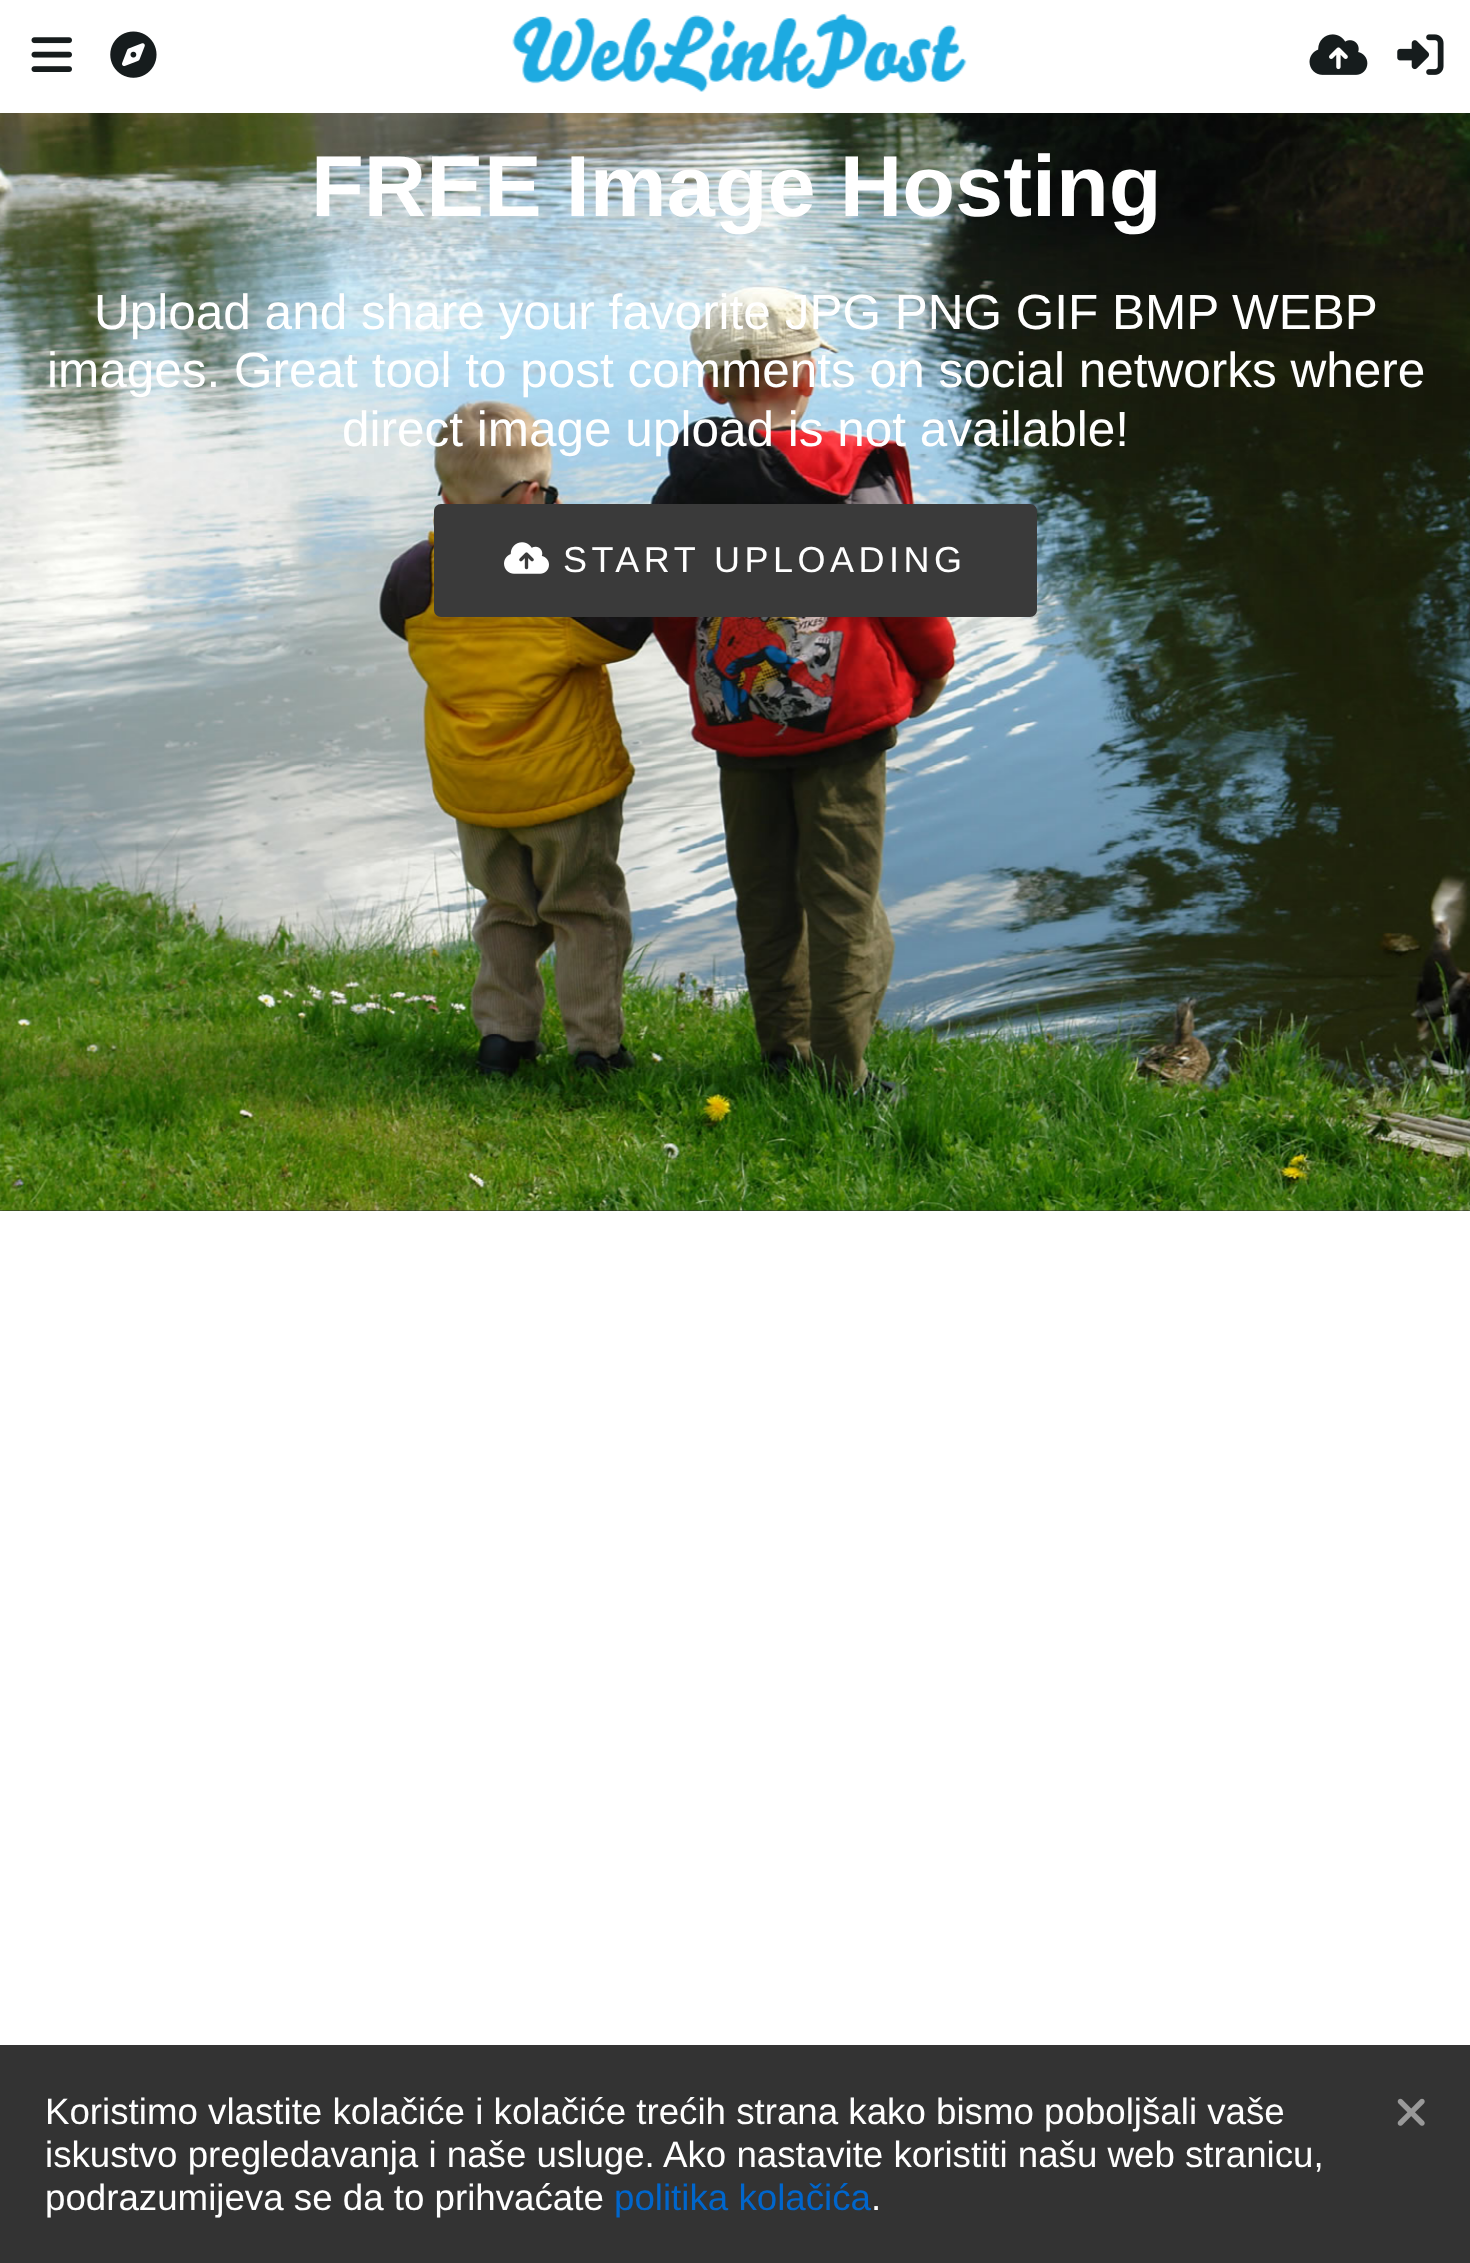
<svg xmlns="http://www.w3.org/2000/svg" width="1470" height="2263">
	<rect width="100%" height="100%" fill="#FFFFFF" />
	<image x="31" y="37" width="41" height="35" href="assets/img1.png" />
	<image x="110" y="31" width="47" height="47" href="assets/img2.png" />
	<image x="512" y="13" width="455" height="79" href="assets/img3.png" />
	<image x="1309" y="34" width="59" height="41" href="assets/img4.png" />
	<image x="1397" y="34" width="47" height="41" href="assets/img5.png" />
	<rect x="0" y="1210" width="1470" height="1" fill="#333333" />
	<image x="0" y="113" width="1470" height="1098" href="assets/img6.png" />
	<text x="311" y="216" font-family="Liberation Sans" font-size="86.5" font-weight="700" fill="#FFFFFF">FREE Image Hosting</text>
	<g font-family="Liberation Sans" font-size="49.5" fill="#FFFFFF">
		<text x="94" y="329">Upload and share your favorite JPG PNG GIF BMP WEBP</text>
		<text x="47" y="387">images. Great tool to post comments on social networks where</text>
		<text x="342" y="446">direct image upload is not available!</text>
	</g>
	<rect x="434" y="504" width="603" height="113" rx="7" fill="#3A3A3A" />
	<image x="504" y="542" width="45" height="32" href="assets/img7.png" />
	<text x="563" y="572" font-family="Liberation Sans" font-size="36" letter-spacing="4.5" fill="#FFFFFF">START UPLOADING</text>
	<rect x="0" y="2045" width="1470" height="218" fill="#333333" />
	<g font-family="Liberation Sans" font-size="36.7" fill="#FFFFFF">
		<text x="45" y="2124">Koristimo vlastite kolačiće i kolačiće trećih strana kako bismo poboljšali vaše</text>
		<text x="45" y="2167">iskustvo pregledavanja i naše usluge. Ako nastavite koristiti našu web stranicu,</text>
		<text x="45" y="2210">podrazumijeva se da to prihvaćate</text>
	</g>
	<text x="614" y="2210" font-family="Liberation Sans" font-size="36.7" fill="#0066CC">politika kolačića</text>
	<text x="871" y="2210" font-family="Liberation Sans" font-size="36.7" fill="#FFFFFF">.</text>
	<image x="1397" y="2098" width="28" height="28" href="assets/img8.png" />
</svg>
